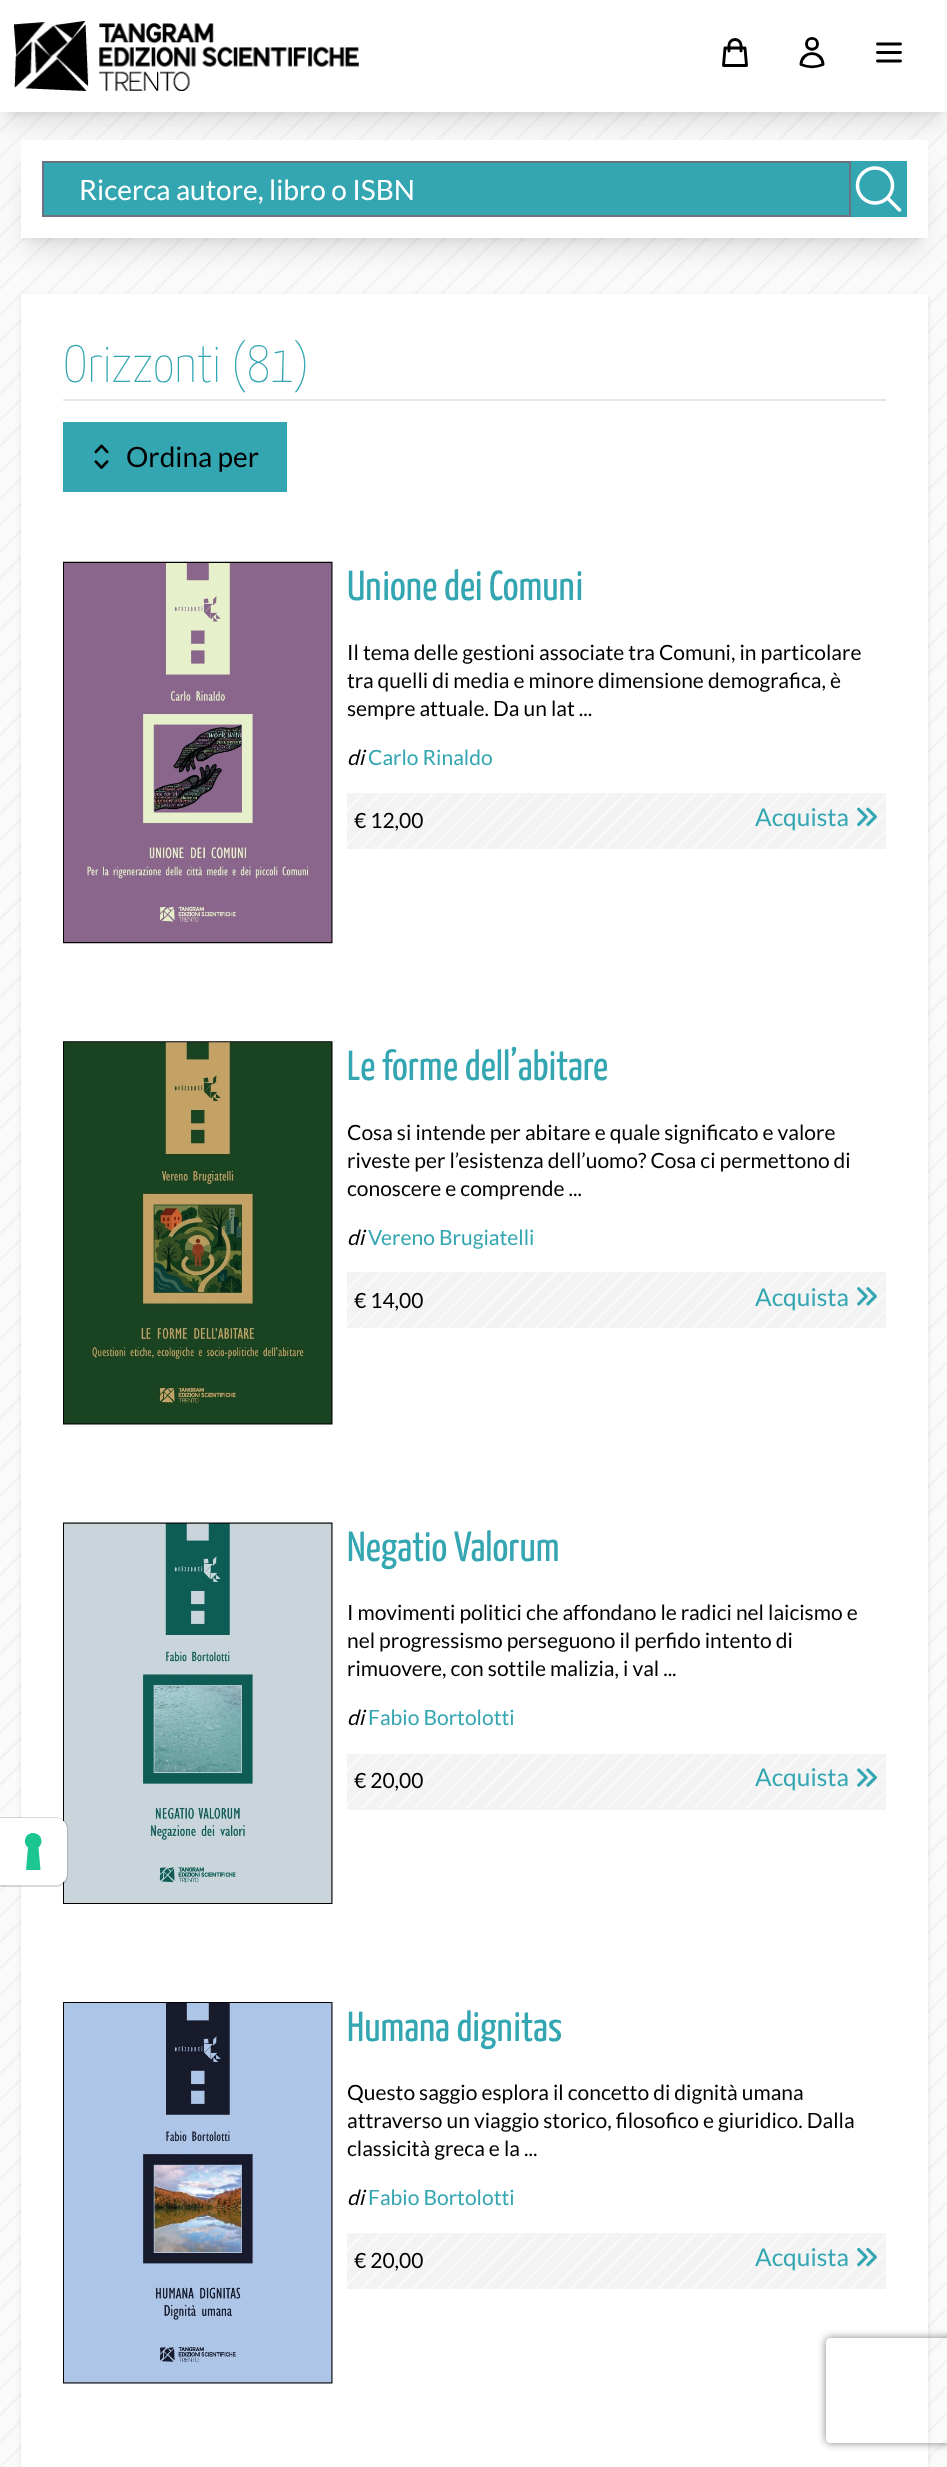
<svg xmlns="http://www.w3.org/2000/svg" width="947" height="2467">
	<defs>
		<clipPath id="clip1"><path d="M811 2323H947V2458H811ZM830 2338H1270C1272 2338 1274 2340 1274 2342V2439C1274 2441 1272 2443 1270 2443H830C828 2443 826 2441 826 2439V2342C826 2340 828 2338 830 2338Z" clip-rule="evenodd" /></clipPath>
	</defs>
	<rect width="100%" height="100%" fill="#FAFAFA" />
	<image x="0" y="112" width="947" height="2355" href="assets/img1.png" />
	<rect x="7" y="14" width="935" height="98" fill="#000000" fill-opacity="0.1" filter="blur(5px)" />
	<rect x="5" y="23" width="938" height="101" fill="#000000" fill-opacity="0.1" filter="blur(13px)" />
	<rect x="0" y="0" width="947" height="112" fill="#FFFFFF" />
	<image x="14" y="21" width="345" height="70" href="assets/img2.png" />
	<path d="M741 51V45C741 42 738 39.5 735 39.5C732 39.5 729 42 729 45V51M725 48H745L746.5 65.5H723.5Z" fill="none" stroke="#000000" stroke-width="2.9" stroke-linecap="round" stroke-linejoin="round" />
	<path d="M817.5 44C817.5 51 806.5 51 806.5 44C806.5 36.5 817.5 36.5 817.5 44ZM801 64.5C801.5 50 822.5 50 823 64.5C816 67.5 808 67.5 801 64.5Z" fill="none" stroke="#000000" stroke-width="2.9" stroke-linecap="round" stroke-linejoin="round" />
	<path d="M877.5 44H900.5M877.5 52.5H900.5M877.5 61H900.5" fill="none" stroke="#000000" stroke-width="2.9" stroke-linecap="round" stroke-linejoin="round" />
	<rect x="21" y="296" width="907" height="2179" fill="#000000" fill-opacity="0.1" filter="blur(2.5px)" />
	<rect x="21" y="294" width="907" height="2173" fill="#FFFFFF" />
	<image x="63" y="1522" width="270" height="382" href="assets/img11.png" />
	<path d="M-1 1818H56C62 1818 67 1823 67 1829V1875C67 1881 62 1886 56 1886H-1Z" fill="none" stroke="#000000" stroke-opacity="0.15" stroke-width="2" />
	<path d="M0 1818H56C62 1818 67 1823 67 1829V1874C67 1880 62 1885 56 1885H0Z" fill="#FFFFFF" />
	<path d="M33 1833C41 1833 44.5 1842.5 38.5 1847.5L40.5 1870H26L28 1847.5C22 1842.5 25.5 1833 33 1833Z" fill="#1CC691" fill-rule="evenodd" />
	<rect x="28" y="154" width="893" height="84" fill="#000000" fill-opacity="0.1" filter="blur(5px)" />
	<rect x="26" y="163" width="896" height="87" fill="#000000" fill-opacity="0.1" filter="blur(13px)" />
	<rect x="21" y="140" width="907" height="98" fill="#FFFFFF" />
	<rect x="43" y="162" width="807" height="54" fill="#33A6B2" stroke="#6B7280" stroke-width="2" />
	<text x="79" y="200" font-family="Lato" font-size="28" fill="#FFFFFF">Ricerca autore, libro o ISBN</text>
	<rect x="851" y="161" width="56" height="56" fill="#33A6B2" />
	<image x="855" y="166" width="47" height="46" href="assets/img3.png" />
	<text x="63" y="382" font-family="Yanone Kaffeesatz" font-size="52.5" font-weight="200" fill="#33A6B2">Orizzonti (81)</text>
	<rect x="63" y="399" width="823" height="2" fill="#E5E7EB" />
	<rect x="63" y="422" width="224" height="70" fill="#33A6B2" />
	<image x="94" y="444" width="15" height="25" href="assets/img4.png" />
	<text x="126" y="467" font-family="Lato" font-size="28" fill="#000000">Ordina per</text>
	<image x="63" y="561" width="270" height="383" href="assets/img5.png" />
	<text x="347" y="600" font-family="Yanone Kaffeesatz" font-size="42" fill="#33A6B2">Unione dei Comuni</text>
	<g font-family="Lato" font-size="21" fill="#000000">
		<text x="347" y="660">Il tema delle gestioni associate tra Comuni, in particolare</text>
		<text x="347" y="688">tra quelli di media e minore dimensione demografica, è</text>
		<text x="347" y="716">sempre attuale. Da un lat ...</text>
	</g>
	<text x="347" y="765" font-family="Lato" font-size="21" font-style="italic" fill="#000000">di</text>
	<text x="368" y="765" font-family="Lato" font-size="21" fill="#33A6B2">Carlo Rinaldo</text>
	<rect x="347" y="793" width="539" height="56" fill="#F3F3F3" />
	<image x="347" y="793" width="538" height="56" href="assets/img6.png" />
	<text x="354" y="828" font-family="Lato" font-size="21" fill="#000000">€ 12,00</text>
	<text x="755" y="826" font-family="Lato" font-size="24.5" fill="#33A6B2">Acquista</text>
	<image x="857" y="807" width="20" height="19" href="assets/img7.png" />
	<image x="63" y="1041" width="270" height="384" href="assets/img8.png" />
	<text x="347" y="1080" font-family="Yanone Kaffeesatz" font-size="42" fill="#33A6B2">Le forme dell’abitare</text>
	<g font-family="Lato" font-size="21" fill="#000000">
		<text x="347" y="1140">Cosa si intende per abitare e quale significato e valore</text>
		<text x="347" y="1168">riveste per l’esistenza dell’uomo? Cosa ci permettono di</text>
		<text x="347" y="1196">conoscere e comprende ...</text>
	</g>
	<text x="347" y="1245" font-family="Lato" font-size="21" font-style="italic" fill="#000000">di</text>
	<text x="368" y="1245" font-family="Lato" font-size="21" fill="#33A6B2">Vereno Brugiatelli</text>
	<rect x="347" y="1272" width="539" height="56" fill="#F3F3F3" />
	<image x="347" y="1272" width="538" height="56" href="assets/img9.png" />
	<text x="354" y="1308" font-family="Lato" font-size="21" fill="#000000">€ 14,00</text>
	<text x="755" y="1306" font-family="Lato" font-size="24.5" fill="#33A6B2">Acquista</text>
	<image x="857" y="1287" width="20" height="19" href="assets/img10.png" />
	<text x="347" y="1561" font-family="Yanone Kaffeesatz" font-size="42" fill="#33A6B2">Negatio Valorum</text>
	<g font-family="Lato" font-size="21" fill="#000000">
		<text x="347" y="1620">I movimenti politici che affondano le radici nel laicismo e</text>
		<text x="347" y="1648">nel progressismo perseguono il perfido intento di</text>
		<text x="347" y="1676">rimuovere, con sottile malizia, i val ...</text>
	</g>
	<text x="347" y="1725" font-family="Lato" font-size="21" font-style="italic" fill="#000000">di</text>
	<text x="368" y="1725" font-family="Lato" font-size="21" fill="#33A6B2">Fabio Bortolotti</text>
	<rect x="347" y="1754" width="539" height="56" fill="#F3F3F3" />
	<image x="347" y="1754" width="538" height="55" href="assets/img12.png" />
	<text x="354" y="1788" font-family="Lato" font-size="21" fill="#000000">€ 20,00</text>
	<text x="755" y="1786" font-family="Lato" font-size="24.5" fill="#33A6B2">Acquista</text>
	<image x="857" y="1768" width="20" height="19" href="assets/img13.png" />
	<image x="63" y="2002" width="270" height="382" href="assets/img14.png" />
	<text x="347" y="2041" font-family="Yanone Kaffeesatz" font-size="42" fill="#33A6B2">Humana dignitas</text>
	<g font-family="Lato" font-size="21" fill="#000000">
		<text x="347" y="2100">Questo saggio esplora il concetto di dignità umana</text>
		<text x="347" y="2128">attraverso un viaggio storico, filosofico e giuridico. Dalla</text>
		<text x="347" y="2156">classicità greca e la ...</text>
	</g>
	<text x="347" y="2205" font-family="Lato" font-size="21" font-style="italic" fill="#000000">di</text>
	<text x="368" y="2205" font-family="Lato" font-size="21" fill="#33A6B2">Fabio Bortolotti</text>
	<rect x="347" y="2233" width="539" height="56" fill="#F3F3F3" />
	<image x="347" y="2233" width="538" height="56" href="assets/img15.png" />
	<text x="354" y="2268" font-family="Lato" font-size="21" fill="#000000">€ 20,00</text>
	<text x="755" y="2266" font-family="Lato" font-size="24.5" fill="#33A6B2">Acquista</text>
	<image x="857" y="2247" width="20" height="20" href="assets/img16.png" />
	<g clip-path="url(#clip1)">
		<rect x="826" y="2338" width="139" height="105" rx="4" fill="#808080" filter="blur(4.5px)" />
	</g>
</svg>
